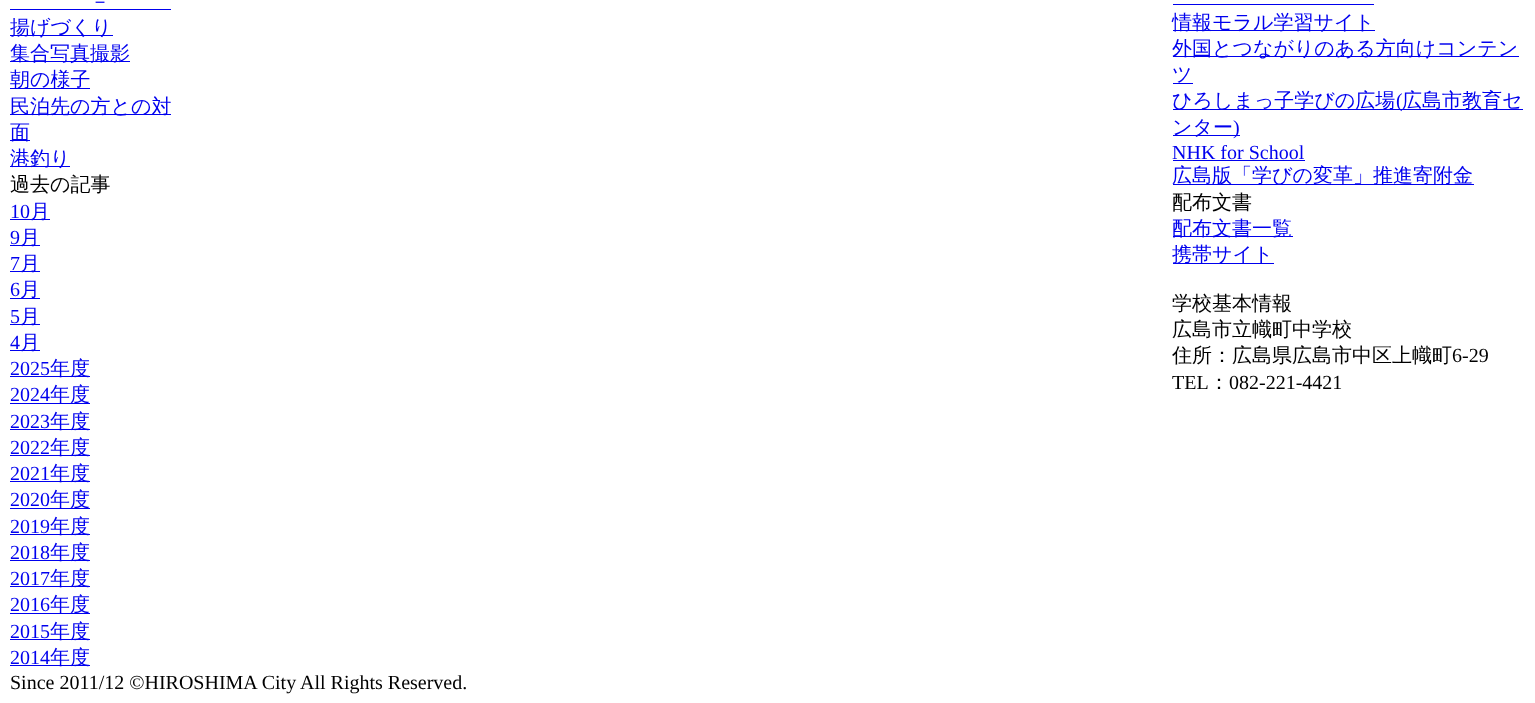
<svg xmlns="http://www.w3.org/2000/svg" width="1535" height="703">
	<rect width="100%" height="100%" fill="#FFFFFF" />
	<text x="90" y="8" font-family="WenQuanYi Zen Hei" font-size="20" font-weight="500" fill="#0000EE">－</text>
	<rect x="10" y="9" width="161" height="1" fill="#0000EE" />
	<rect x="10" y="35" width="103" height="1" fill="#0000EE" />
	<text x="10" y="34" font-family="WenQuanYi Zen Hei" font-size="20" font-weight="500" fill="#0000EE">揚げづくり</text>
	<rect x="10" y="61" width="120" height="1" fill="#0000EE" />
	<text x="10" y="60" font-family="WenQuanYi Zen Hei" font-size="20" font-weight="500" fill="#0000EE">集合写真撮影</text>
	<rect x="10" y="88" width="80" height="1" fill="#0000EE" />
	<text x="10" y="86" font-family="WenQuanYi Zen Hei" font-size="20" font-weight="500" fill="#0000EE">朝の様子</text>
	<rect x="10" y="114" width="161" height="1" fill="#0000EE" />
	<text x="10" y="113" font-family="WenQuanYi Zen Hei" font-size="20" font-weight="500" fill="#0000EE">民泊先の方との対</text>
	<rect x="10" y="140" width="20" height="1" fill="#0000EE" />
	<text x="10" y="139" font-family="WenQuanYi Zen Hei" font-size="20" font-weight="500" fill="#0000EE">面</text>
	<rect x="10" y="166" width="60" height="1" fill="#0000EE" />
	<text x="10" y="165" font-family="WenQuanYi Zen Hei" font-size="20" font-weight="500" fill="#0000EE">港釣り</text>
	<text x="10" y="191" font-family="WenQuanYi Zen Hei" font-size="20" font-weight="500" fill="#000000">過去の記事</text>
	<text x="10" y="218" font-family="Liberation Serif" font-size="20" fill="#0000EE">10</text>
	<rect x="10" y="219" width="40" height="1" fill="#0000EE" />
	<text x="30" y="218" font-family="WenQuanYi Zen Hei" font-size="20" font-weight="500" fill="#0000EE">月</text>
	<text x="10" y="244" font-family="Liberation Serif" font-size="20" fill="#0000EE">9</text>
	<rect x="10" y="245" width="30" height="1" fill="#0000EE" />
	<text x="20" y="244" font-family="WenQuanYi Zen Hei" font-size="20" font-weight="500" fill="#0000EE">月</text>
	<text x="10" y="270" font-family="Liberation Serif" font-size="20" fill="#0000EE">7</text>
	<rect x="10" y="271" width="30" height="1" fill="#0000EE" />
	<text x="20" y="270" font-family="WenQuanYi Zen Hei" font-size="20" font-weight="500" fill="#0000EE">月</text>
	<text x="10" y="296" font-family="Liberation Serif" font-size="20" fill="#0000EE">6</text>
	<rect x="10" y="298" width="30" height="1" fill="#0000EE" />
	<text x="20" y="296" font-family="WenQuanYi Zen Hei" font-size="20" font-weight="500" fill="#0000EE">月</text>
	<text x="10" y="323" font-family="Liberation Serif" font-size="20" fill="#0000EE">5</text>
	<rect x="10" y="324" width="30" height="1" fill="#0000EE" />
	<text x="20" y="323" font-family="WenQuanYi Zen Hei" font-size="20" font-weight="500" fill="#0000EE">月</text>
	<text x="10" y="349" font-family="Liberation Serif" font-size="20" fill="#0000EE">4</text>
	<rect x="10" y="350" width="30" height="1" fill="#0000EE" />
	<text x="20" y="349" font-family="WenQuanYi Zen Hei" font-size="20" font-weight="500" fill="#0000EE">月</text>
	<text x="10" y="375" font-family="Liberation Serif" font-size="20" fill="#0000EE">2025</text>
	<rect x="10" y="376" width="80" height="1" fill="#0000EE" />
	<text x="50" y="375" font-family="WenQuanYi Zen Hei" font-size="20" font-weight="500" fill="#0000EE">年度</text>
	<text x="10" y="401" font-family="Liberation Serif" font-size="20" fill="#0000EE">2024</text>
	<rect x="10" y="403" width="80" height="1" fill="#0000EE" />
	<text x="50" y="401" font-family="WenQuanYi Zen Hei" font-size="20" font-weight="500" fill="#0000EE">年度</text>
	<text x="10" y="428" font-family="Liberation Serif" font-size="20" fill="#0000EE">2023</text>
	<rect x="10" y="429" width="80" height="1" fill="#0000EE" />
	<text x="50" y="428" font-family="WenQuanYi Zen Hei" font-size="20" font-weight="500" fill="#0000EE">年度</text>
	<text x="10" y="454" font-family="Liberation Serif" font-size="20" fill="#0000EE">2022</text>
	<rect x="10" y="455" width="80" height="1" fill="#0000EE" />
	<text x="50" y="454" font-family="WenQuanYi Zen Hei" font-size="20" font-weight="500" fill="#0000EE">年度</text>
	<text x="10" y="480" font-family="Liberation Serif" font-size="20" fill="#0000EE">2021</text>
	<rect x="10" y="481" width="80" height="1" fill="#0000EE" />
	<text x="50" y="480" font-family="WenQuanYi Zen Hei" font-size="20" font-weight="500" fill="#0000EE">年度</text>
	<text x="10" y="506" font-family="Liberation Serif" font-size="20" fill="#0000EE">2020</text>
	<rect x="10" y="508" width="80" height="1" fill="#0000EE" />
	<text x="50" y="506" font-family="WenQuanYi Zen Hei" font-size="20" font-weight="500" fill="#0000EE">年度</text>
	<text x="10" y="533" font-family="Liberation Serif" font-size="20" fill="#0000EE">2019</text>
	<rect x="10" y="534" width="80" height="1" fill="#0000EE" />
	<text x="50" y="533" font-family="WenQuanYi Zen Hei" font-size="20" font-weight="500" fill="#0000EE">年度</text>
	<text x="10" y="559" font-family="Liberation Serif" font-size="20" fill="#0000EE">2018</text>
	<rect x="10" y="560" width="80" height="1" fill="#0000EE" />
	<text x="50" y="559" font-family="WenQuanYi Zen Hei" font-size="20" font-weight="500" fill="#0000EE">年度</text>
	<text x="10" y="585" font-family="Liberation Serif" font-size="20" fill="#0000EE">2017</text>
	<rect x="10" y="586" width="80" height="1" fill="#0000EE" />
	<text x="50" y="585" font-family="WenQuanYi Zen Hei" font-size="20" font-weight="500" fill="#0000EE">年度</text>
	<text x="10" y="611" font-family="Liberation Serif" font-size="20" fill="#0000EE">2016</text>
	<rect x="10" y="613" width="80" height="1" fill="#0000EE" />
	<text x="50" y="611" font-family="WenQuanYi Zen Hei" font-size="20" font-weight="500" fill="#0000EE">年度</text>
	<text x="10" y="638" font-family="Liberation Serif" font-size="20" fill="#0000EE">2015</text>
	<rect x="10" y="639" width="80" height="1" fill="#0000EE" />
	<text x="50" y="638" font-family="WenQuanYi Zen Hei" font-size="20" font-weight="500" fill="#0000EE">年度</text>
	<text x="10" y="664" font-family="Liberation Serif" font-size="20" fill="#0000EE">2014</text>
	<rect x="10" y="665" width="80" height="1" fill="#0000EE" />
	<text x="50" y="664" font-family="WenQuanYi Zen Hei" font-size="20" font-weight="500" fill="#0000EE">年度</text>
	<rect x="1173" y="4" width="201" height="1" fill="#0000EE" />
	<rect x="1173" y="30" width="202" height="1" fill="#0000EE" />
	<text x="1172" y="29" font-family="WenQuanYi Zen Hei" font-size="20" font-weight="500" fill="#0000EE">情報モラル学習サイト</text>
	<rect x="1173" y="56" width="346" height="1" fill="#0000EE" />
	<g font-family="WenQuanYi Zen Hei" font-size="20" font-weight="500" fill="#0000EE">
		<text x="1172" y="55">外国とつながりのある方向けコンテン</text>
		<text x="1172" y="81">ツ</text>
	</g>
	<rect x="1173" y="83" width="20" height="1" fill="#0000EE" />
	<rect x="1173" y="109" width="350" height="1" fill="#0000EE" />
	<text x="1172" y="107" font-family="WenQuanYi Zen Hei" font-size="20" font-weight="500" fill="#0000EE">ひろしまっ子学びの広場</text>
	<text x="1396" y="107" font-family="Liberation Serif" font-size="20" fill="#0000EE">(</text>
	<text x="1402" y="107" font-family="WenQuanYi Zen Hei" font-size="20" font-weight="500" fill="#0000EE">広島市教育セ</text>
	<rect x="1173" y="135" width="67" height="1" fill="#0000EE" />
	<text x="1172" y="134" font-family="WenQuanYi Zen Hei" font-size="20" font-weight="500" fill="#0000EE">ンター</text>
	<g font-family="Liberation Serif" font-size="20" fill="#0000EE">
		<text x="1233" y="134">)</text>
		<text x="1172" y="159">NHK for School</text>
	</g>
	<rect x="1173" y="160" width="132" height="1" fill="#0000EE" />
	<rect x="1173" y="184" width="301" height="1" fill="#0000EE" />
	<text x="1172" y="182" font-family="WenQuanYi Zen Hei" font-size="20" font-weight="500" fill="#0000EE">広島版「学びの変革」推進寄附金</text>
	<text x="1172" y="209" font-family="WenQuanYi Zen Hei" font-size="20" font-weight="500" fill="#000000">配布文書</text>
	<rect x="1173" y="236" width="120" height="1" fill="#0000EE" />
	<text x="1172" y="235" font-family="WenQuanYi Zen Hei" font-size="20" font-weight="500" fill="#0000EE">配布文書一覧</text>
	<rect x="1173" y="263" width="101" height="1" fill="#0000EE" />
	<text x="1172" y="261" font-family="WenQuanYi Zen Hei" font-size="20" font-weight="500" fill="#0000EE">携帯サイト</text>
	<g font-family="WenQuanYi Zen Hei" font-size="20" font-weight="500" fill="#000000">
		<text x="1172" y="310">学校基本情報</text>
		<text x="1172" y="336">広島市立幟町中学校</text>
		<text x="1172" y="362">住所：広島県広島市中区上幟町</text>
	</g>
	<g font-family="Liberation Serif" font-size="20" fill="#000000">
		<text x="1452" y="362">6-29</text>
		<text x="1172" y="389">TEL</text>
	</g>
	<text x="1209" y="389" font-family="WenQuanYi Zen Hei" font-size="20" font-weight="500" fill="#000000">：</text>
	<g font-family="Liberation Serif" font-size="20" fill="#000000">
		<text x="1229" y="389">082-221-4421</text>
		<text x="10" y="689">Since 2011/12 ©HIROSHIMA City All Rights Reserved.</text>
	</g>
</svg>
